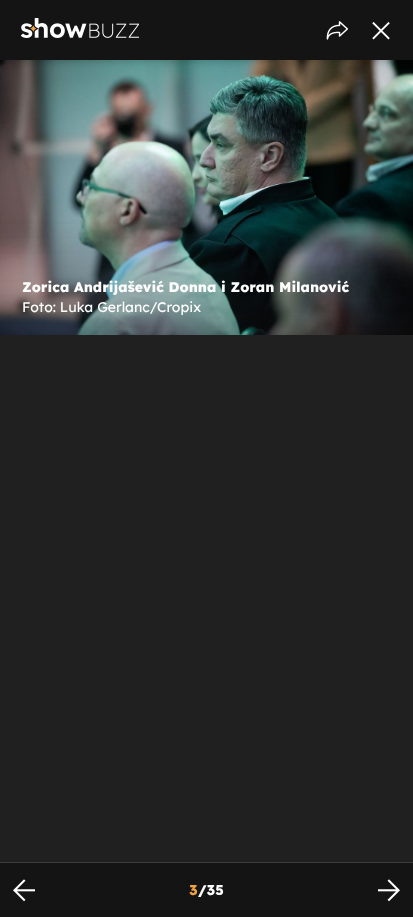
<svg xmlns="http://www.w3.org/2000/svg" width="413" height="917">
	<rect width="100%" height="100%" fill="#202020" />
	<image x="0" y="60" width="413" height="275" href="assets/img4.png" />
	<rect x="0" y="2" width="413" height="60" fill="#000000" fill-opacity="0.15" filter="blur(3.5px)" />
	<rect x="0" y="0" width="413" height="60" fill="#141414" />
	<image x="21" y="18" width="118" height="20" href="assets/img1.png" />
	<image x="326" y="21" width="23" height="19" href="assets/img2.png" />
	<image x="372" y="22" width="18" height="18" href="assets/img3.png" />
	<text x="22" y="292" font-family="Lexend" font-size="14" font-weight="800" fill="#FFFFFF">Zorica Andrijašević Donna i Zoran Milanović</text>
	<text x="22" y="312" font-family="Lexend" font-size="14" fill="#FFFFFF">Foto: Luka Gerlanc/Cropix</text>
	<rect x="0" y="863" width="413" height="54" fill="#141414" />
	<rect x="0" y="862" width="413" height="1" fill="#3D3D3D" />
	<image x="13" y="879" width="22" height="23" href="assets/img5.png" />
	<text x="189" y="895" font-family="Lexend" font-size="14" font-weight="800" fill="#F2A444">3</text>
	<text x="198" y="895" font-family="Lexend" font-size="14" font-weight="800" fill="#FFFFFF">/35</text>
	<image x="378" y="879" width="22" height="23" href="assets/img6.png" />
</svg>
